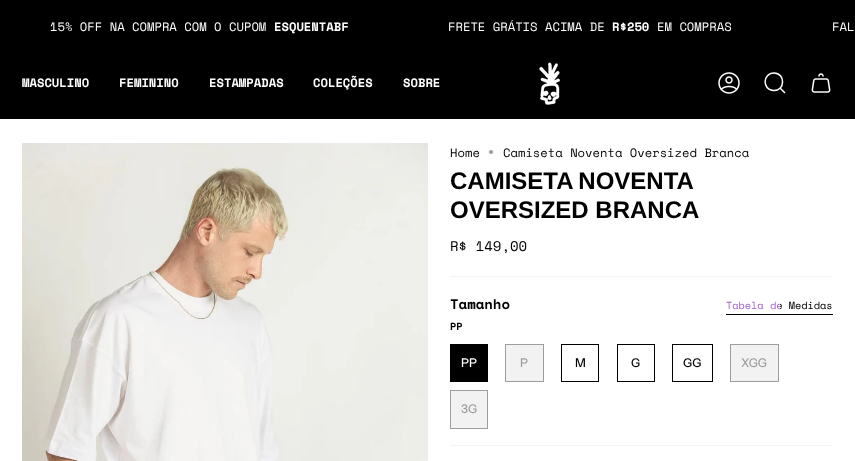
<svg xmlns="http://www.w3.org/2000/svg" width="855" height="461">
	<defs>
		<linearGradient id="g1" gradientUnits="userSpaceOnUse" x1="726" y1="306" x2="833" y2="306"><stop offset="0" stop-color="#A05BCD" /><stop offset="0.5" stop-color="#A05BCD" /><stop offset="0.5" stop-color="#000000" /><stop offset="1" stop-color="#000000" /></linearGradient>
	</defs>
	<rect width="100%" height="100%" fill="#FFFFFF" />
	<rect x="0" y="0" width="855" height="119" fill="#000000" />
	<text x="50" y="31" font-family="Space Mono" font-size="12.2" fill="#FFFFFF">15% OFF NA COMPRA COM O CUPOM</text>
	<text x="274" y="31" font-family="Space Mono" font-size="12.2" font-weight="700" fill="#FFFFFF">ESQUENTABF</text>
	<text x="448" y="31" font-family="Space Mono" font-size="12.2" fill="#FFFFFF">FRETE GRÁTIS ACIMA DE</text>
	<text x="612" y="31" font-family="Space Mono" font-size="12.2" font-weight="700" fill="#FFFFFF">R$250</text>
	<g font-family="Space Mono" font-size="12.2" fill="#FFFFFF">
		<text x="657" y="31">EM COMPRAS</text>
		<text x="832" y="31">FAL</text>
	</g>
	<g font-family="Space Mono" font-size="12.2" font-weight="700" fill="#FFFFFF">
		<text x="22" y="87">MASCULINO</text>
		<text x="119" y="87">FEMININO</text>
		<text x="209" y="87">ESTAMPADAS</text>
		<text x="313" y="87">COLEÇÕES</text>
		<text x="403" y="87">SOBRE</text>
	</g>
	<image x="539" y="62" width="21" height="43" href="assets/img1.png" />
	<image x="718" y="72" width="22" height="22" href="assets/img2.png" />
	<path d="M774 73C785.5 73 785.5 91 773.5 90.5C762 90 762.5 73 774 73ZM780 88L785 93" fill="none" stroke="#FFFFFF" stroke-width="1.5" />
	<image x="811" y="73" width="20" height="20" href="assets/img3.png" />
	<image x="22" y="143" width="406" height="318" href="assets/img4.png" />
	<text x="450" y="157" font-family="Space Mono" font-size="12.2" fill="#000000">Home</text>
	<circle cx="491" cy="152" r="2" fill="#999999" />
	<text x="503" y="157" font-family="Space Mono" font-size="12.2" fill="#000000">Camiseta Noventa Oversized Branca</text>
	<g font-family="Liberation Sans" font-size="24" font-weight="700" fill="#000000">
		<text x="450" y="189" word-spacing="-1">CAMISETA NOVENTA</text>
		<text x="450" y="218">OVERSIZED BRANCA</text>
	</g>
	<text x="450" y="251" font-family="Space Mono" font-size="14" fill="#000000">R$ 149,00</text>
	<rect x="450" y="276" width="383" height="1" fill="#F3F3F3" />
	<rect x="450" y="445" width="383" height="1" fill="#F3F3F3" />
	<text x="450" y="309" font-family="Space Mono" font-size="14" font-weight="700" fill="#000000">Tamanho</text>
	<text x="726" y="309" font-family="Space Mono" font-size="10.25" fill="url(#g1)">Tabela de Medidas</text>
	<rect x="726" y="314" width="107" height="1" fill="#000000" />
	<text x="450" y="330" font-family="Space Mono" font-size="10.25" font-weight="700" fill="#000000">PP</text>
	<rect x="450" y="344" width="38" height="38" fill="#000000" />
	<text x="461" y="367" font-family="Instrument Sans" font-size="12" font-weight="500" fill="#FFFFFF">PP</text>
	<rect x="505.5" y="344.5" width="38" height="37" fill="#F2F2F2" stroke="#9D9D9D" />
	<text x="520" y="367" font-family="Instrument Sans" font-size="12" font-weight="500" fill="#9D9D9D">P</text>
	<rect x="561.5" y="344.5" width="37" height="37" fill="none" stroke="#000000" />
	<text x="575" y="367" font-family="Instrument Sans" font-size="12" font-weight="500" fill="#000000">M</text>
	<rect x="617.5" y="344.5" width="37" height="37" fill="none" stroke="#000000" />
	<text x="631" y="367" font-family="Instrument Sans" font-size="12" font-weight="500" fill="#000000">G</text>
	<rect x="672.5" y="344.5" width="40" height="37" fill="none" stroke="#000000" />
	<text x="683" y="367" font-family="Instrument Sans" font-size="12" font-weight="500" fill="#000000">GG</text>
	<rect x="730.5" y="344.5" width="48" height="37" fill="#F2F2F2" stroke="#9D9D9D" />
	<text x="741" y="367" font-family="Instrument Sans" font-size="12" font-weight="500" fill="#9D9D9D">XGG</text>
	<rect x="450.5" y="390.5" width="37" height="38" fill="#F2F2F2" stroke="#9D9D9D" />
	<text x="461" y="413" font-family="Instrument Sans" font-size="12" font-weight="500" fill="#9D9D9D">3G</text>
</svg>
